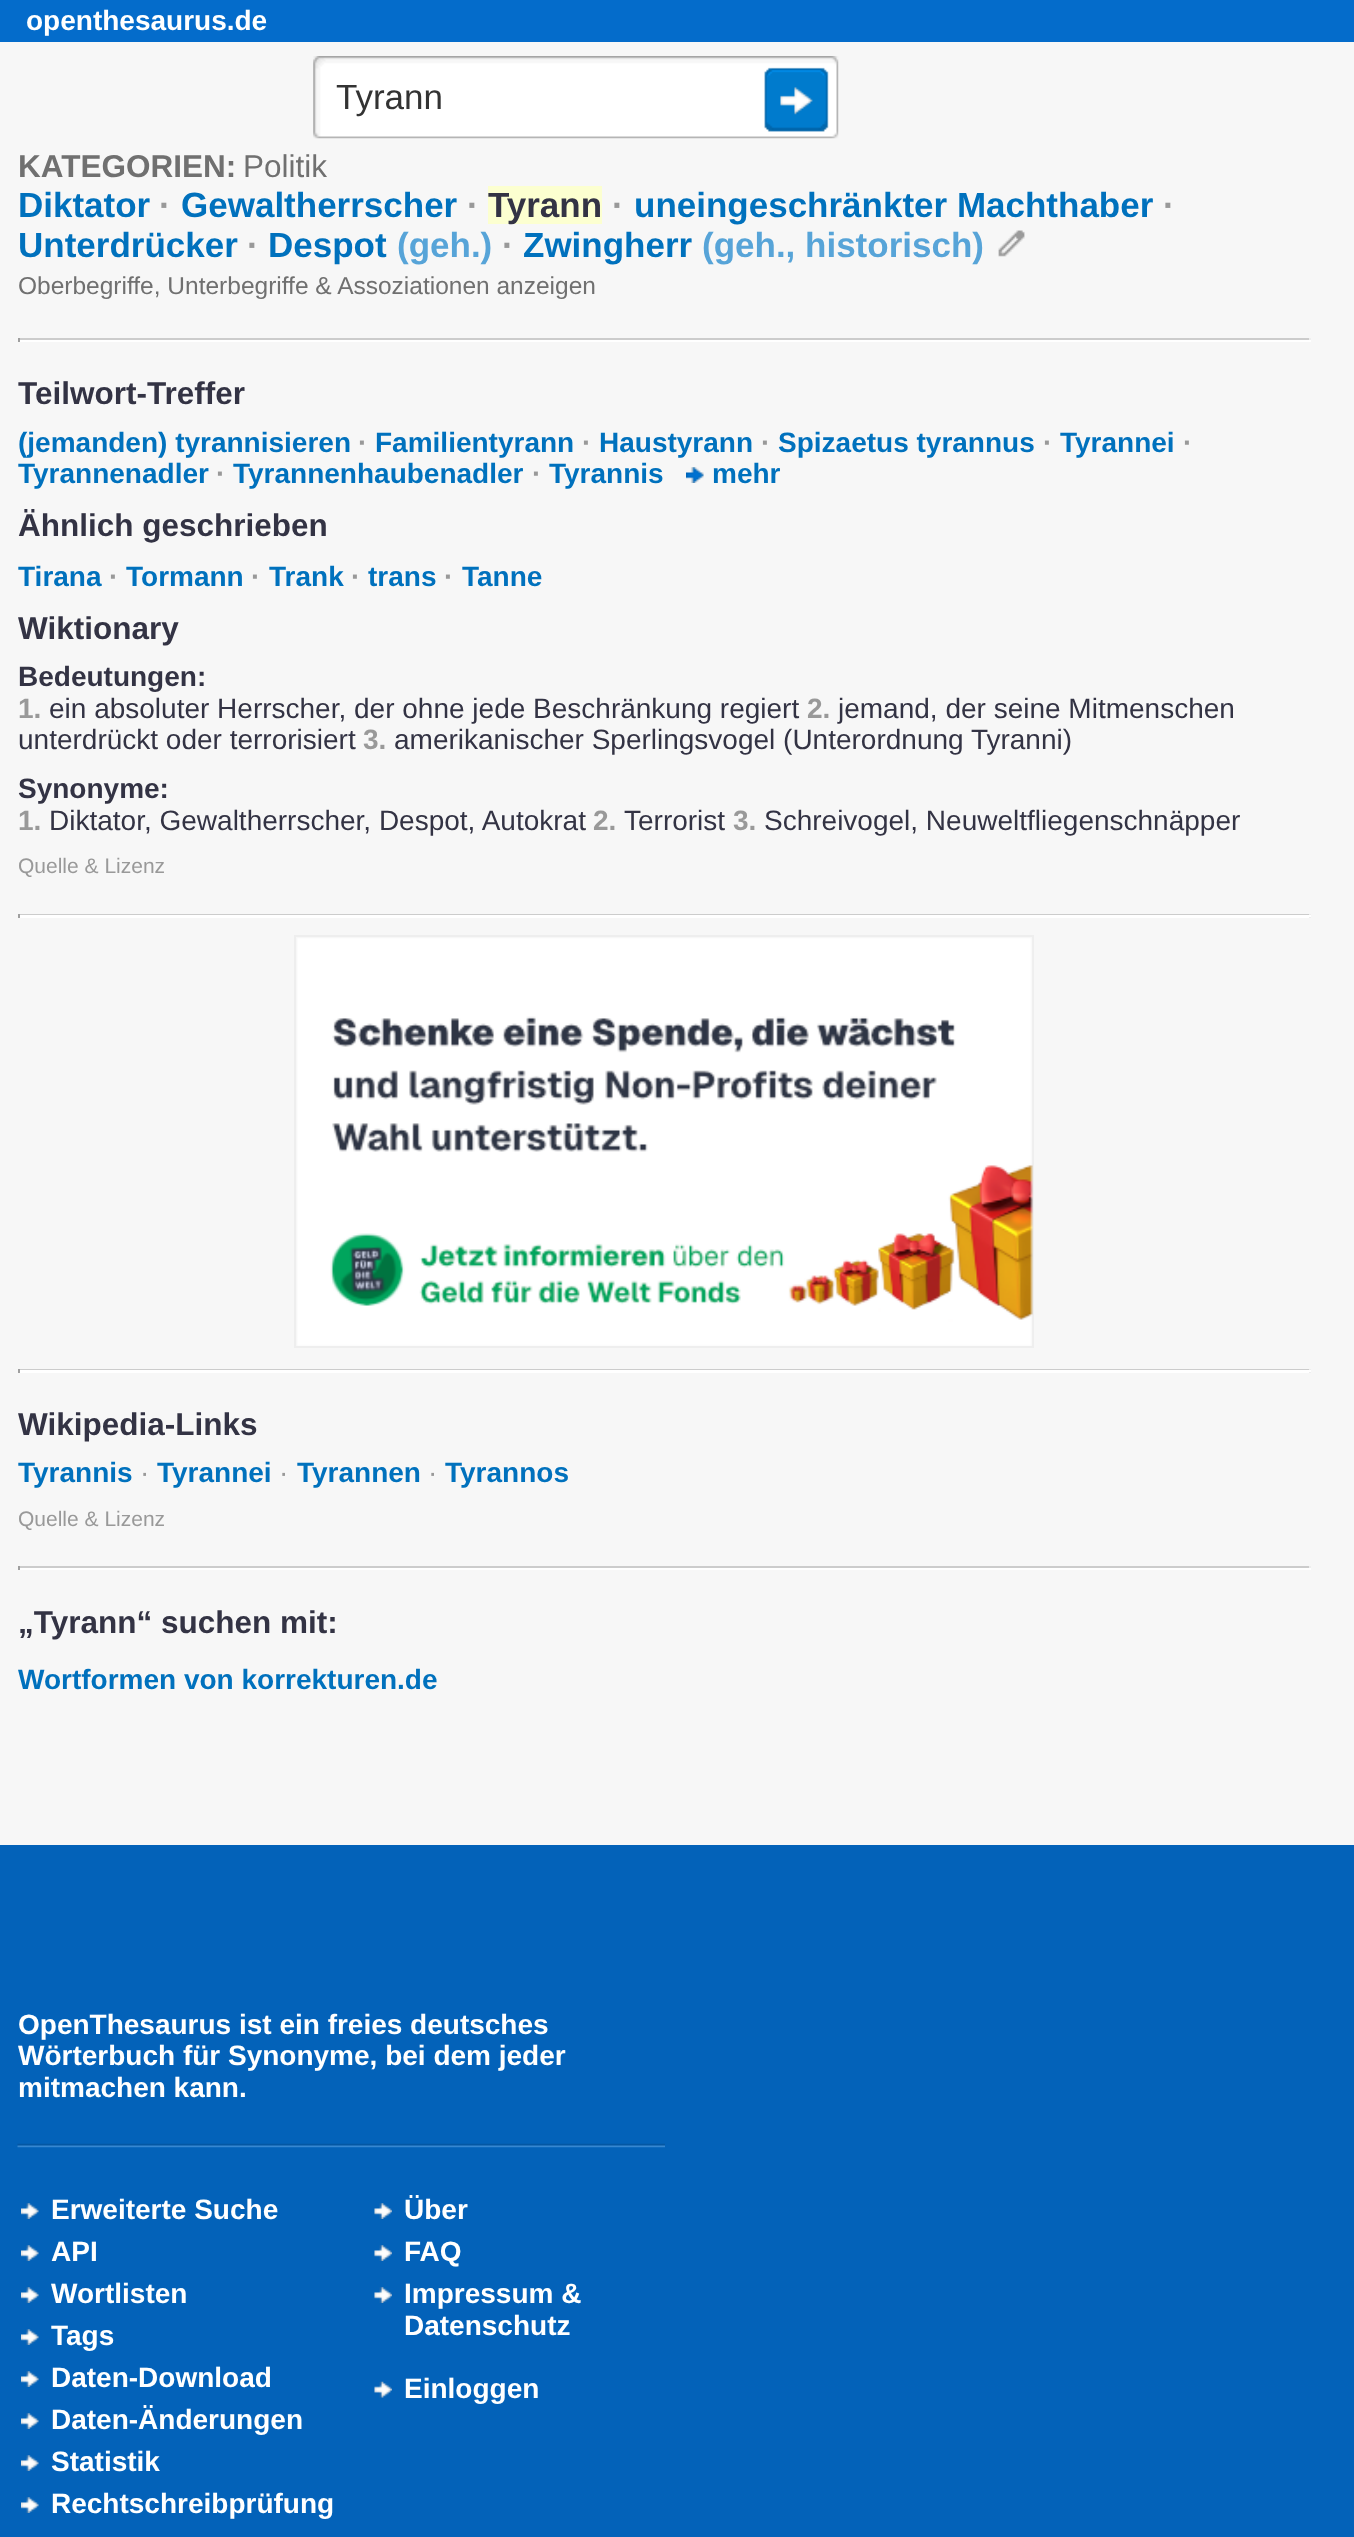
<svg xmlns="http://www.w3.org/2000/svg" width="1354" height="2537">
	<rect width="100%" height="100%" fill="#0362B9" />
	<rect x="0" y="0" width="1354" height="42" fill="#046CCB" />
	<text x="26" y="30" font-family="Liberation Sans" font-size="28" font-weight="700" fill="#FFFFFF">openthesaurus.de</text>
	<rect x="0" y="42" width="1354" height="1803" fill="#F7F7F7" />
	<image x="313" y="56" width="526" height="83" href="assets/img1.png" />
	<text x="336" y="109" font-family="Liberation Sans" font-size="35" fill="#333333">Tyrann</text>
	<image x="764" y="67" width="65" height="65" href="assets/img2.png" />
	<text x="18" y="177" font-family="Liberation Sans" font-size="31.5" font-weight="700" fill="#707070">KATEGORIEN:</text>
	<text x="243" y="177" font-family="Liberation Sans" font-size="31.5" fill="#707070">Politik</text>
	<text x="18" y="217" font-family="Liberation Sans" font-size="35" font-weight="700" fill="#0071BD">Diktator</text>
	<text x="159" y="217" font-family="Liberation Sans" font-size="35" font-weight="700" fill="#999999">·</text>
	<text x="181" y="217" font-family="Liberation Sans" font-size="35" font-weight="700" fill="#0071BD">Gewaltherrscher</text>
	<text x="467" y="217" font-family="Liberation Sans" font-size="35" font-weight="700" fill="#999999">·</text>
	<rect x="488" y="186" width="114" height="38" fill="#FCFFD0" />
	<text x="488" y="217" font-family="Liberation Sans" font-size="35" font-weight="700" fill="#333344">Tyrann</text>
	<text x="612" y="217" font-family="Liberation Sans" font-size="35" font-weight="700" fill="#999999">·</text>
	<text x="634" y="217" font-family="Liberation Sans" font-size="35" font-weight="700" fill="#0071BD">uneingeschränkter Machthaber</text>
	<text x="1163" y="217" font-family="Liberation Sans" font-size="35" font-weight="700" fill="#999999">·</text>
	<text x="18" y="257" font-family="Liberation Sans" font-size="35" font-weight="700" fill="#0071BD">Unterdrücker</text>
	<text x="247" y="257" font-family="Liberation Sans" font-size="35" font-weight="700" fill="#999999">·</text>
	<text x="268" y="257" font-family="Liberation Sans" font-size="35" font-weight="700" fill="#0071BD">Despot</text>
	<text x="397" y="257" font-family="Liberation Sans" font-size="35" font-weight="700" fill="#57A4D8">(geh.)</text>
	<text x="502" y="257" font-family="Liberation Sans" font-size="35" font-weight="700" fill="#999999">·</text>
	<text x="523" y="257" font-family="Liberation Sans" font-size="35" font-weight="700" fill="#0071BD">Zwingherr</text>
	<text x="702" y="257" font-family="Liberation Sans" font-size="35" font-weight="700" fill="#57A4D8">(geh., historisch)</text>
	<image x="998" y="230" width="27" height="27" href="assets/img3.png" />
	<text x="18" y="294" font-family="Liberation Sans" font-size="24.5" fill="#707070">Oberbegriffe, Unterbegriffe &amp; Assoziationen anzeigen</text>
	<rect x="18" y="338" width="1293" height="2" fill="#CCCCCC" />
	<rect x="1309" y="338" width="2" height="4" fill="#EEEEEE" />
	<rect x="18" y="340" width="1293" height="2" fill="#FFFFFF" />
	<rect x="18" y="338" width="2" height="4" fill="#9F9F9F" />
	<text x="18" y="404" font-family="Liberation Sans" font-size="31.5" font-weight="700" fill="#333344">Teilwort-Treffer</text>
	<text x="18" y="452" font-family="Liberation Sans" font-size="28" font-weight="700" fill="#0071BD">(jemanden) tyrannisieren</text>
	<text x="358" y="452" font-family="Liberation Sans" font-size="28" font-weight="700" fill="#999999">·</text>
	<text x="375" y="452" font-family="Liberation Sans" font-size="28" font-weight="700" fill="#0071BD">Familientyrann</text>
	<text x="582" y="452" font-family="Liberation Sans" font-size="28" font-weight="700" fill="#999999">·</text>
	<text x="599" y="452" font-family="Liberation Sans" font-size="28" font-weight="700" fill="#0071BD">Haustyrann</text>
	<text x="761" y="452" font-family="Liberation Sans" font-size="28" font-weight="700" fill="#999999">·</text>
	<text x="778" y="452" font-family="Liberation Sans" font-size="28" font-weight="700" fill="#0071BD">Spizaetus tyrannus</text>
	<text x="1043" y="452" font-family="Liberation Sans" font-size="28" font-weight="700" fill="#999999">·</text>
	<text x="1060" y="452" font-family="Liberation Sans" font-size="28" font-weight="700" fill="#0071BD">Tyrannei</text>
	<text x="1183" y="452" font-family="Liberation Sans" font-size="28" font-weight="700" fill="#999999">·</text>
	<text x="18" y="483" font-family="Liberation Sans" font-size="28" font-weight="700" fill="#0071BD">Tyrannenadler</text>
	<text x="216" y="483" font-family="Liberation Sans" font-size="28" font-weight="700" fill="#999999">·</text>
	<text x="233" y="483" font-family="Liberation Sans" font-size="28" font-weight="700" fill="#0071BD">Tyrannenhaubenadler</text>
	<text x="532" y="483" font-family="Liberation Sans" font-size="28" font-weight="700" fill="#999999">·</text>
	<text x="549" y="483" font-family="Liberation Sans" font-size="28" font-weight="700" fill="#0071BD">Tyrannis</text>
	<image x="686" y="467" width="18" height="16" href="assets/img4.png" />
	<text x="712" y="483" font-family="Liberation Sans" font-size="28" font-weight="700" fill="#0071BD">mehr</text>
	<text x="18" y="536" font-family="Liberation Sans" font-size="31.5" font-weight="700" fill="#333344">Ähnlich geschrieben</text>
	<text x="18" y="586" font-family="Liberation Sans" font-size="28" font-weight="700" fill="#0071BD">Tirana</text>
	<text x="109" y="586" font-family="Liberation Sans" font-size="28" font-weight="700" fill="#999999">·</text>
	<text x="126" y="586" font-family="Liberation Sans" font-size="28" font-weight="700" fill="#0071BD">Tormann</text>
	<text x="251" y="586" font-family="Liberation Sans" font-size="28" font-weight="700" fill="#999999">·</text>
	<text x="269" y="586" font-family="Liberation Sans" font-size="28" font-weight="700" fill="#0071BD">Trank</text>
	<text x="351" y="586" font-family="Liberation Sans" font-size="28" font-weight="700" fill="#999999">·</text>
	<text x="368" y="586" font-family="Liberation Sans" font-size="28" font-weight="700" fill="#0071BD">trans</text>
	<text x="444" y="586" font-family="Liberation Sans" font-size="28" font-weight="700" fill="#999999">·</text>
	<text x="462" y="586" font-family="Liberation Sans" font-size="28" font-weight="700" fill="#0071BD">Tanne</text>
	<text x="18" y="639" font-family="Liberation Sans" font-size="31.5" font-weight="700" fill="#333344">Wiktionary</text>
	<text x="18" y="686" font-family="Liberation Sans" font-size="28" font-weight="700" fill="#333344">Bedeutungen:</text>
	<text x="18" y="718" font-family="Liberation Sans" font-size="28" font-weight="700" fill="#999999">1.</text>
	<text x="49" y="718" font-family="Liberation Sans" font-size="28" fill="#333344">ein absoluter Herrscher, der ohne jede Beschränkung regiert</text>
	<text x="807" y="718" font-family="Liberation Sans" font-size="28" font-weight="700" fill="#999999">2.</text>
	<g font-family="Liberation Sans" font-size="28" fill="#333344">
		<text x="838" y="718">jemand, der seine Mitmenschen</text>
		<text x="18" y="749">unterdrückt oder terrorisiert</text>
	</g>
	<text x="363" y="749" font-family="Liberation Sans" font-size="28" font-weight="700" fill="#999999">3.</text>
	<text x="394" y="749" font-family="Liberation Sans" font-size="28" fill="#333344">amerikanischer Sperlingsvogel (Unterordnung Tyranni)</text>
	<text x="18" y="798" font-family="Liberation Sans" font-size="28" font-weight="700" fill="#333344">Synonyme:</text>
	<text x="18" y="830" font-family="Liberation Sans" font-size="28" font-weight="700" fill="#999999">1.</text>
	<text x="49" y="830" font-family="Liberation Sans" font-size="28" fill="#333344">Diktator, Gewaltherrscher, Despot, Autokrat</text>
	<text x="593" y="830" font-family="Liberation Sans" font-size="28" font-weight="700" fill="#999999">2.</text>
	<text x="624" y="830" font-family="Liberation Sans" font-size="28" fill="#333344">Terrorist</text>
	<text x="733" y="830" font-family="Liberation Sans" font-size="28" font-weight="700" fill="#999999">3.</text>
	<text x="764" y="830" font-family="Liberation Sans" font-size="28" fill="#333344">Schreivogel, Neuweltfliegenschnäpper</text>
	<text x="18" y="873" font-family="Liberation Sans" font-size="21" fill="#999999">Quelle &amp; Lizenz</text>
	<rect x="18" y="917" width="1293" height="1" fill="#FFFFFF" />
	<rect x="18" y="914" width="1293" height="1" fill="#CCCCCC" />
	<rect x="1309" y="914" width="2" height="4" fill="#EEEEEE" />
	<rect x="18" y="915" width="1293" height="2" fill="#FFFFFF" />
	<rect x="18" y="914" width="2" height="4" fill="#9F9F9F" />
	<rect x="295" y="936" width="738" height="411" fill="none" stroke="#EEEEEE" stroke-width="2" />
	<image x="297" y="938" width="736" height="408" href="assets/img5.png" />
	<rect x="18" y="1372" width="1293" height="1" fill="#FFFFFF" />
	<rect x="18" y="1369" width="1293" height="1" fill="#CCCCCC" />
	<rect x="1309" y="1369" width="2" height="4" fill="#EEEEEE" />
	<rect x="18" y="1370" width="1293" height="2" fill="#FFFFFF" />
	<rect x="18" y="1369" width="2" height="4" fill="#9F9F9F" />
	<text x="18" y="1435" font-family="Liberation Sans" font-size="31.5" font-weight="700" fill="#333344">Wikipedia-Links</text>
	<text x="18" y="1482" font-family="Liberation Sans" font-size="28" font-weight="700" fill="#0071BD">Tyrannis</text>
	<text x="140" y="1482" font-family="Liberation Sans" font-size="28" fill="#999999">·</text>
	<text x="157" y="1482" font-family="Liberation Sans" font-size="28" font-weight="700" fill="#0071BD">Tyrannei</text>
	<text x="279" y="1482" font-family="Liberation Sans" font-size="28" fill="#999999">·</text>
	<text x="297" y="1482" font-family="Liberation Sans" font-size="28" font-weight="700" fill="#0071BD">Tyrannen</text>
	<text x="428" y="1482" font-family="Liberation Sans" font-size="28" fill="#999999">·</text>
	<text x="445" y="1482" font-family="Liberation Sans" font-size="28" font-weight="700" fill="#0071BD">Tyrannos</text>
	<text x="18" y="1526" font-family="Liberation Sans" font-size="21" fill="#999999">Quelle &amp; Lizenz</text>
	<rect x="18" y="1566" width="1293" height="2" fill="#CCCCCC" />
	<rect x="1309" y="1566" width="2" height="4" fill="#EEEEEE" />
	<rect x="18" y="1568" width="1293" height="2" fill="#FFFFFF" />
	<rect x="18" y="1566" width="2" height="4" fill="#9F9F9F" />
	<text x="18" y="1633" font-family="Liberation Sans" font-size="31.5" font-weight="700" fill="#333344">„Tyrann“ suchen mit:</text>
	<text x="18" y="1689" font-family="Liberation Sans" font-size="28" font-weight="700" fill="#0071BD">Wortformen von korrekturen.de</text>
	<g font-family="Liberation Sans" font-size="28" font-weight="700" fill="#FFFFFF">
		<text x="18" y="2034">OpenThesaurus ist ein freies deutsches</text>
		<text x="18" y="2065">Wörterbuch für Synonyme, bei dem jeder</text>
		<text x="18" y="2097">mitmachen kann.</text>
	</g>
	<image x="17" y="2143" width="648" height="5" href="assets/img6.png" />
	<image x="21" y="2203" width="18" height="16" href="assets/img7.png" />
	<text x="51" y="2219" font-family="Liberation Sans" font-size="28" font-weight="700" fill="#FFFFFF">Erweiterte Suche</text>
	<image x="21" y="2245" width="18" height="16" href="assets/img7.png" />
	<text x="51" y="2261" font-family="Liberation Sans" font-size="28" font-weight="700" fill="#FFFFFF">API</text>
	<image x="21" y="2287" width="18" height="16" href="assets/img7.png" />
	<text x="51" y="2303" font-family="Liberation Sans" font-size="28" font-weight="700" fill="#FFFFFF">Wortlisten</text>
	<image x="21" y="2329" width="18" height="16" href="assets/img7.png" />
	<text x="51" y="2345" font-family="Liberation Sans" font-size="28" font-weight="700" fill="#FFFFFF">Tags</text>
	<image x="21" y="2371" width="18" height="16" href="assets/img7.png" />
	<text x="51" y="2387" font-family="Liberation Sans" font-size="28" font-weight="700" fill="#FFFFFF">Daten-Download</text>
	<image x="21" y="2413" width="18" height="16" href="assets/img7.png" />
	<text x="51" y="2429" font-family="Liberation Sans" font-size="28" font-weight="700" fill="#FFFFFF">Daten-Änderungen</text>
	<image x="21" y="2455" width="18" height="16" href="assets/img7.png" />
	<text x="51" y="2471" font-family="Liberation Sans" font-size="28" font-weight="700" fill="#FFFFFF">Statistik</text>
	<image x="21" y="2497" width="18" height="16" href="assets/img7.png" />
	<text x="51" y="2513" font-family="Liberation Sans" font-size="28" font-weight="700" fill="#FFFFFF">Rechtschreibprüfung</text>
	<image x="374" y="2203" width="18" height="16" href="assets/img8.png" />
	<text x="404" y="2219" font-family="Liberation Sans" font-size="28" font-weight="700" fill="#FFFFFF">Über</text>
	<image x="374" y="2245" width="18" height="16" href="assets/img8.png" />
	<text x="404" y="2261" font-family="Liberation Sans" font-size="28" font-weight="700" fill="#FFFFFF">FAQ</text>
	<image x="374" y="2287" width="18" height="16" href="assets/img8.png" />
	<g font-family="Liberation Sans" font-size="28" font-weight="700" fill="#FFFFFF">
		<text x="404" y="2303">Impressum &amp;</text>
		<text x="404" y="2335">Datenschutz</text>
	</g>
	<image x="374" y="2381" width="18" height="17" href="assets/img9.png" />
	<text x="404" y="2398" font-family="Liberation Sans" font-size="28" font-weight="700" fill="#FFFFFF">Einloggen</text>
</svg>
